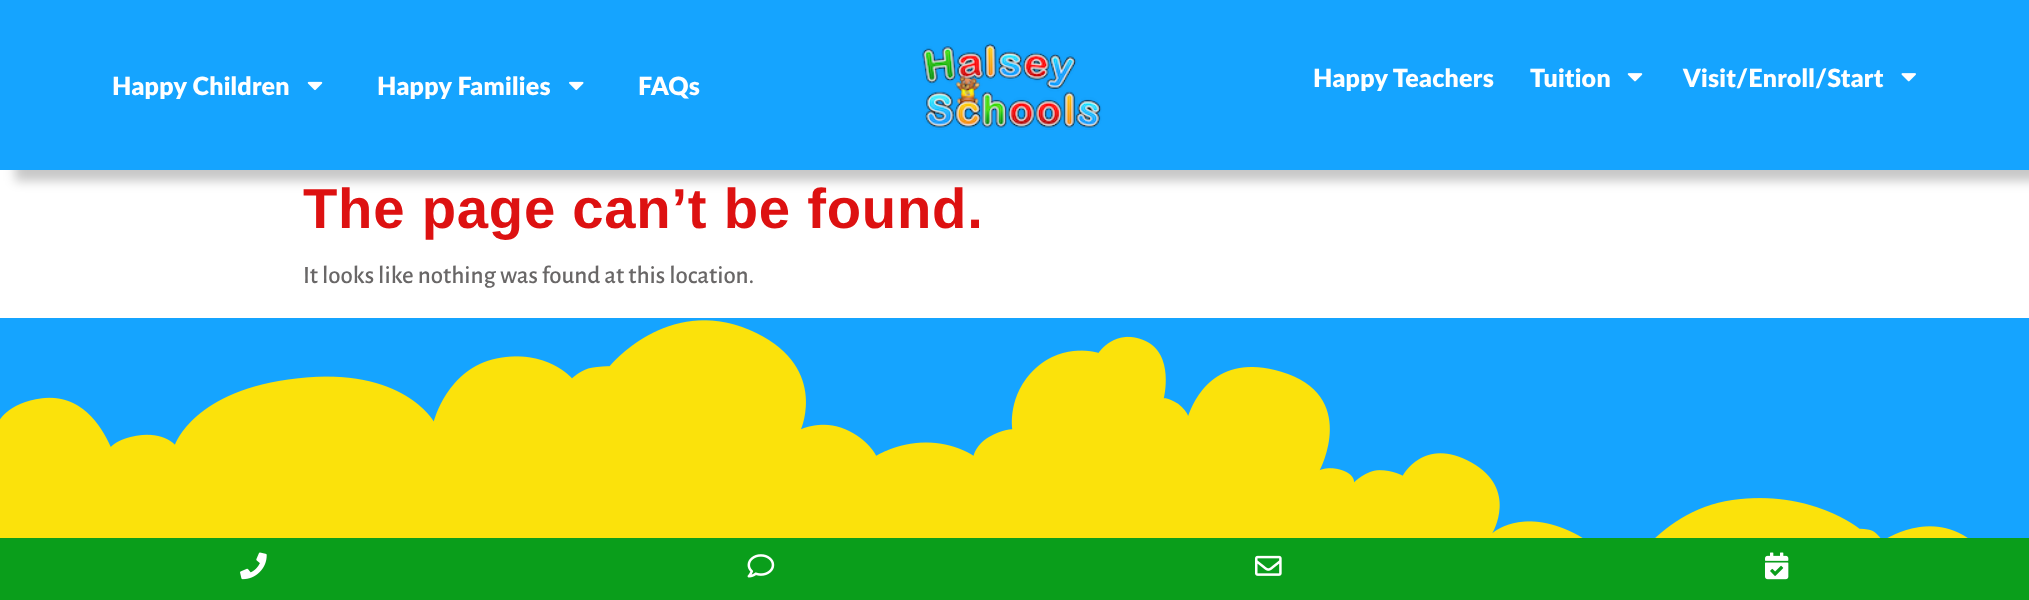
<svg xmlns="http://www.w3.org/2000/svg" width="2029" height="600">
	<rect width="100%" height="100%" fill="#FFFFFF" />
	<rect x="15" y="11" width="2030" height="170" fill="#000000" fill-opacity="0.22" filter="blur(5.5px)" />
	<rect x="0" y="0" width="2029" height="170" fill="#15A4FF" />
	<text x="112" y="95" font-family="Lato" font-size="25" font-weight="800" letter-spacing="0.25" fill="#FFFFFF">Happy Children</text>
	<image x="307" y="81" width="16" height="10" href="assets/img1.png" />
	<text x="377" y="95" font-family="Lato" font-size="25" font-weight="800" letter-spacing="0.25" fill="#FFFFFF">Happy Families</text>
	<image x="569" y="81" width="15" height="10" href="assets/img2.png" />
	<text x="638" y="95" font-family="Lato" font-size="25" font-weight="800" letter-spacing="0.25" fill="#FFFFFF">FAQs</text>
	<image x="922" y="43" width="180" height="87" href="assets/img3.png" />
	<g font-family="Lato" font-size="25" font-weight="800" letter-spacing="0.25" fill="#FFFFFF">
		<text x="1313" y="87">Happy Teachers</text>
		<text x="1530" y="87">Tuition</text>
	</g>
	<image x="1627" y="73" width="16" height="9" href="assets/img4.png" />
	<text x="1683" y="87" font-family="Lato" font-size="25" font-weight="800" letter-spacing="0.25" fill="#FFFFFF">Visit/Enroll/Start</text>
	<image x="1901" y="73" width="15" height="9" href="assets/img5.png" />
	<text x="303" y="228" font-family="Liberation Sans" font-size="56.25" font-weight="700" letter-spacing="0.75" fill="#DD1111">The page can’t be found.</text>
	<text x="303" y="283" font-family="Alegreya Sans" font-size="25" font-weight="500" fill="#696767">It looks like nothing was found at this location.</text>
	<rect x="0" y="320" width="1968" height="218" fill="#FBE20B" />
	<image x="0" y="318" width="2029" height="220" href="assets/img6.png" />
	<rect x="0" y="538" width="2029" height="62" fill="#0A9E1B" />
	<image x="240" y="552" width="27" height="28" href="assets/img7.png" />
	<image x="747" y="554" width="28" height="24" href="assets/img8.png" />
	<image x="1255" y="555" width="27" height="21" href="assets/img9.png" />
	<image x="1765" y="552" width="24" height="28" href="assets/img10.png" />
</svg>
